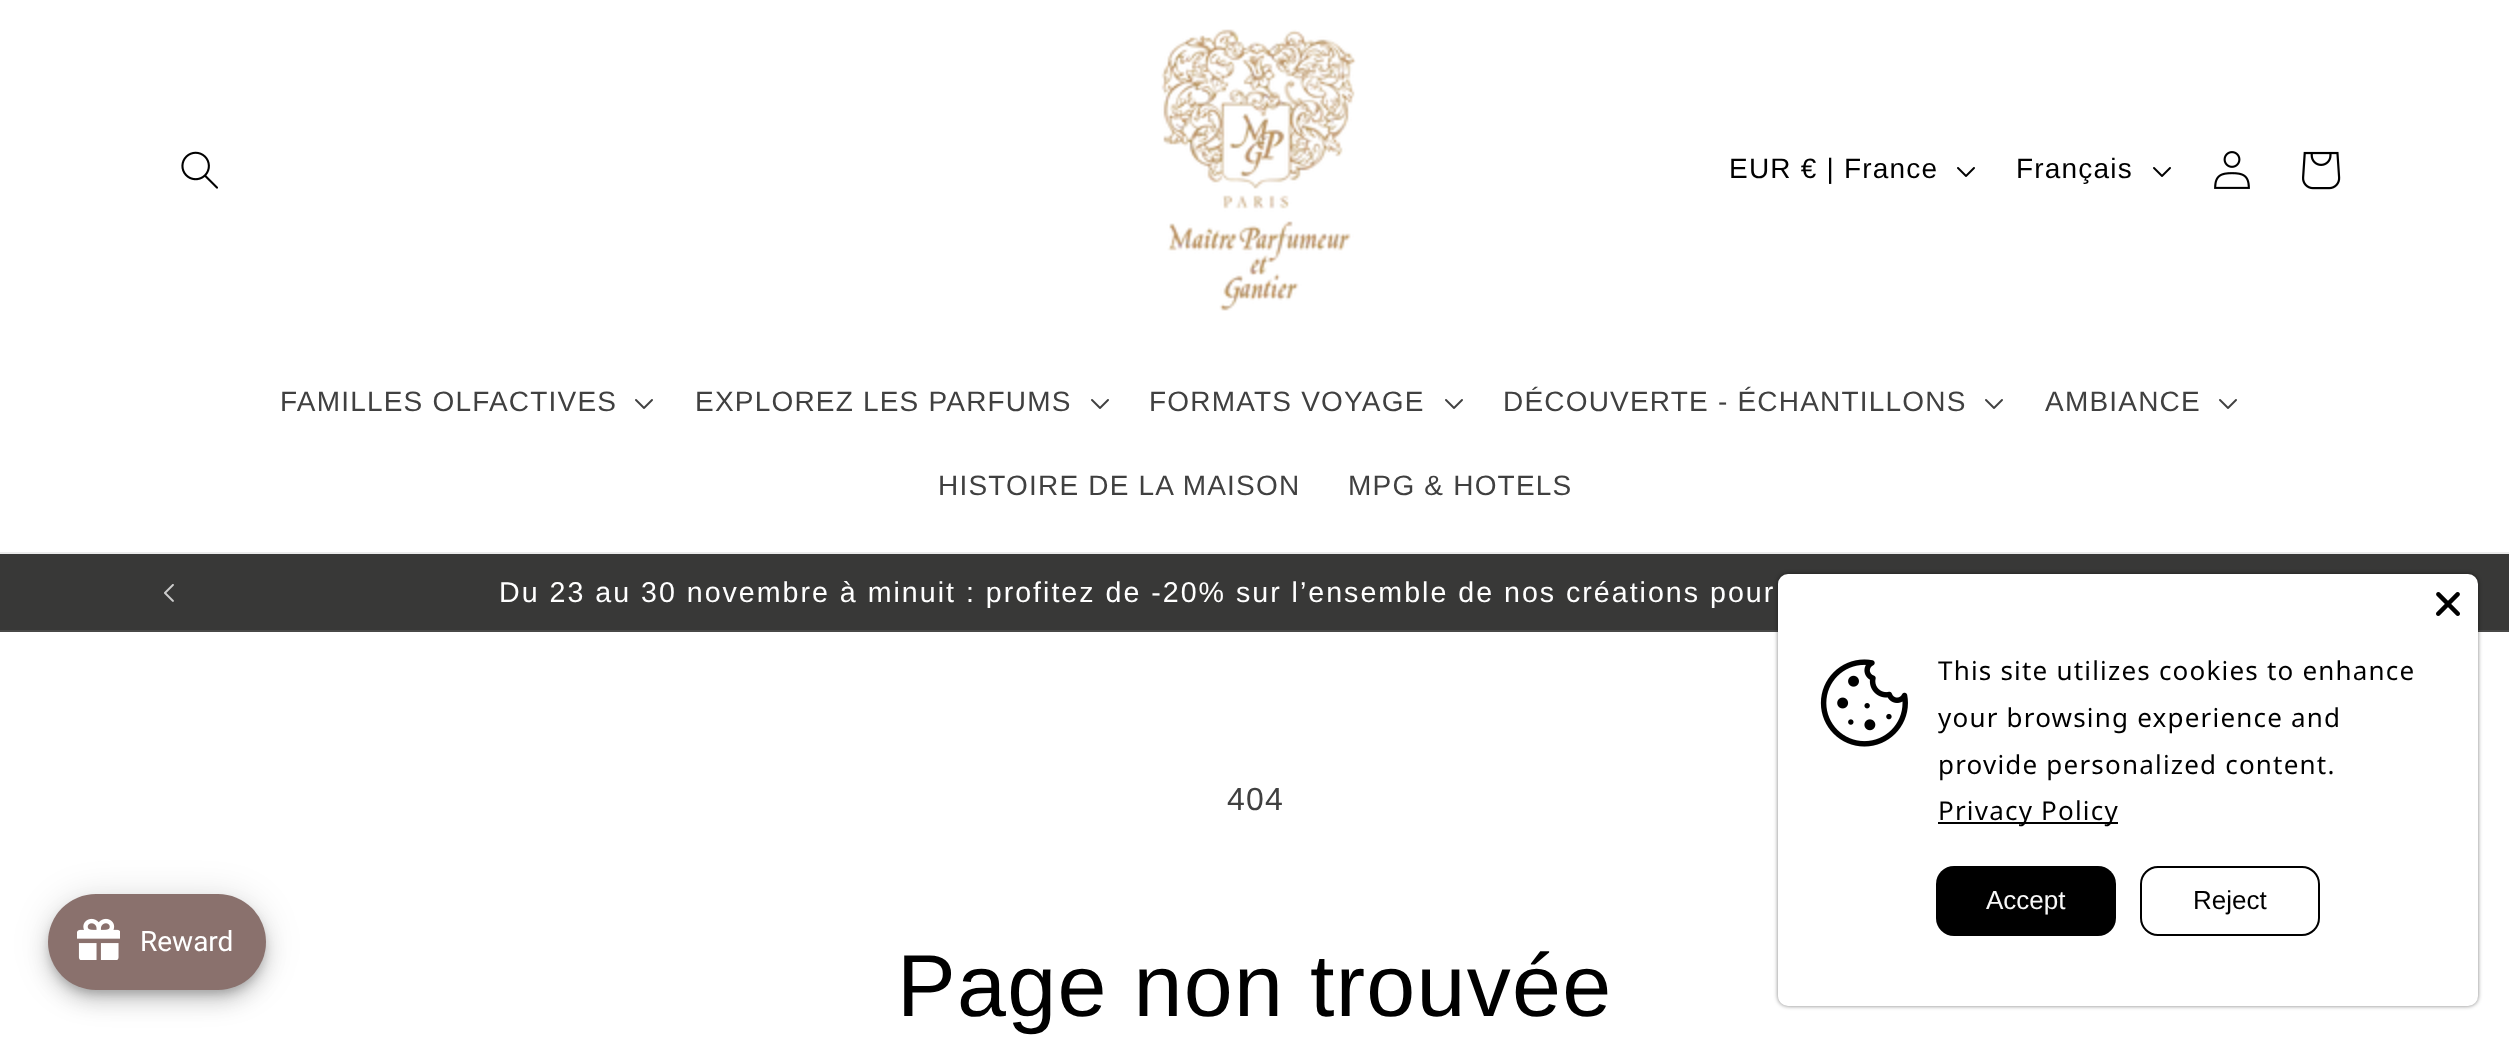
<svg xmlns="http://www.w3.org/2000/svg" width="2509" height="1038">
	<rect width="100%" height="100%" fill="#FFFFFF" />
	<rect x="0" y="552" width="2509" height="2" fill="#EBEBEB" />
	<image x="181" y="151" width="37" height="38" href="assets/img1.png" />
	<image x="1161" y="29" width="195" height="282" href="assets/img2.png" />
	<text x="1729" y="178" font-family="Liberation Sans" font-size="28" letter-spacing="1.2" fill="#000000">EUR € | France</text>
	<image x="1957" y="167" width="18" height="10" href="assets/img3.png" />
	<text x="2016" y="178" font-family="Liberation Sans" font-size="28" letter-spacing="1.2" fill="#000000">Français</text>
	<image x="2153" y="167" width="18" height="10" href="assets/img3.png" />
	<image x="2214" y="151" width="36" height="38" href="assets/img4.png" />
	<image x="2302" y="151" width="39" height="39" href="assets/img5.png" />
	<text x="280" y="411" font-family="Liberation Sans" font-size="28" letter-spacing="1.2" fill="#404040">FAMILLES OLFACTIVES</text>
	<image x="635" y="399" width="18" height="10" href="assets/img6.png" />
	<text x="695" y="411" font-family="Liberation Sans" font-size="28" letter-spacing="1.2" fill="#404040">EXPLOREZ LES PARFUMS</text>
	<image x="1091" y="399" width="18" height="10" href="assets/img6.png" />
	<text x="1149" y="411" font-family="Liberation Sans" font-size="28" letter-spacing="1.2" fill="#404040">FORMATS VOYAGE</text>
	<image x="1445" y="399" width="18" height="10" href="assets/img6.png" />
	<text x="1503" y="411" font-family="Liberation Sans" font-size="28" letter-spacing="1.2" fill="#404040">DÉCOUVERTE - ÉCHANTILLONS</text>
	<image x="1985" y="399" width="18" height="10" href="assets/img6.png" />
	<text x="2045" y="411" font-family="Liberation Sans" font-size="28" letter-spacing="1.2" fill="#404040">AMBIANCE</text>
	<image x="2219" y="399" width="18" height="10" href="assets/img6.png" />
	<g font-family="Liberation Sans" font-size="28" letter-spacing="1.2" fill="#404040">
		<text x="938" y="495">HISTOIRE DE LA MAISON</text>
		<text x="1348" y="495">MPG &amp; HOTELS</text>
	</g>
	<rect x="0" y="554" width="2509" height="76" fill="#383837" />
	<rect x="0" y="630" width="2509" height="2" fill="#484847" />
	<image x="164" y="584" width="10" height="18" href="assets/img7.png" />
	<text x="499" y="602" font-family="Liberation Sans" font-size="28.6" letter-spacing="2" fill="#FFFFFF">Du 23 au 30 novembre à minuit : profitez de -20% sur l’ensemble de nos créations pour</text>
	<rect x="48" y="896" width="218" height="96" rx="48" fill="#000000" fill-opacity="0.12" filter="blur(18px)" />
	<rect x="48" y="906" width="218" height="96" rx="48" fill="#000000" fill-opacity="0.14" filter="blur(10px)" />
	<rect x="50" y="902" width="214" height="92" rx="46" fill="#000000" fill-opacity="0.2" filter="blur(5px)" />
	<rect x="48" y="894" width="218" height="96" rx="48" fill="#8A716D" />
	<image x="77" y="918" width="43" height="42" href="assets/img8.png" />
	<text x="140" y="951" font-family="Roboto" font-size="28" fill="#FFFFFF">Reward</text>
	<text x="1227" y="810" font-family="Liberation Sans" font-size="32" letter-spacing="1.2" fill="#404040">404</text>
	<text x="897" y="1016" font-family="Liberation Sans" font-size="88" letter-spacing="1.3" fill="#000000">Page non trouvée</text>
	<rect x="1778" y="574" width="700" height="432" rx="10" fill="#000000" fill-opacity="0.5" filter="blur(2px)" />
	<rect x="1778" y="574" width="700" height="432" rx="10" fill="#FFFFFF" />
	<image x="2436" y="592" width="24" height="24" href="assets/img9.png" />
	<image x="1820" y="659" width="88" height="88" href="assets/img10.png" />
	<g font-family="Noto Sans" font-size="26" letter-spacing="1.2" fill="#000000">
		<text x="1938" y="680">This site utilizes cookies to enhance</text>
		<text x="1938" y="727">your browsing experience and</text>
		<text x="1938" y="774">provide personalized content.</text>
	</g>
	<rect x="1938" y="822" width="180" height="2" fill="#000000" />
	<text x="1938" y="820" font-family="Noto Sans" font-size="26" letter-spacing="1.2" fill="#000000">Privacy Policy</text>
	<rect x="1936" y="866" width="180" height="70" rx="18" fill="#000000" />
	<text x="1986" y="909" font-family="Liberation Sans" font-size="26" fill="#F8F8F8">Accept</text>
	<rect x="2141" y="867" width="178" height="68" rx="17" fill="none" stroke="#000000" stroke-width="2" />
	<text x="2193" y="909" font-family="Liberation Sans" font-size="26" fill="#000000">Reject</text>
</svg>
